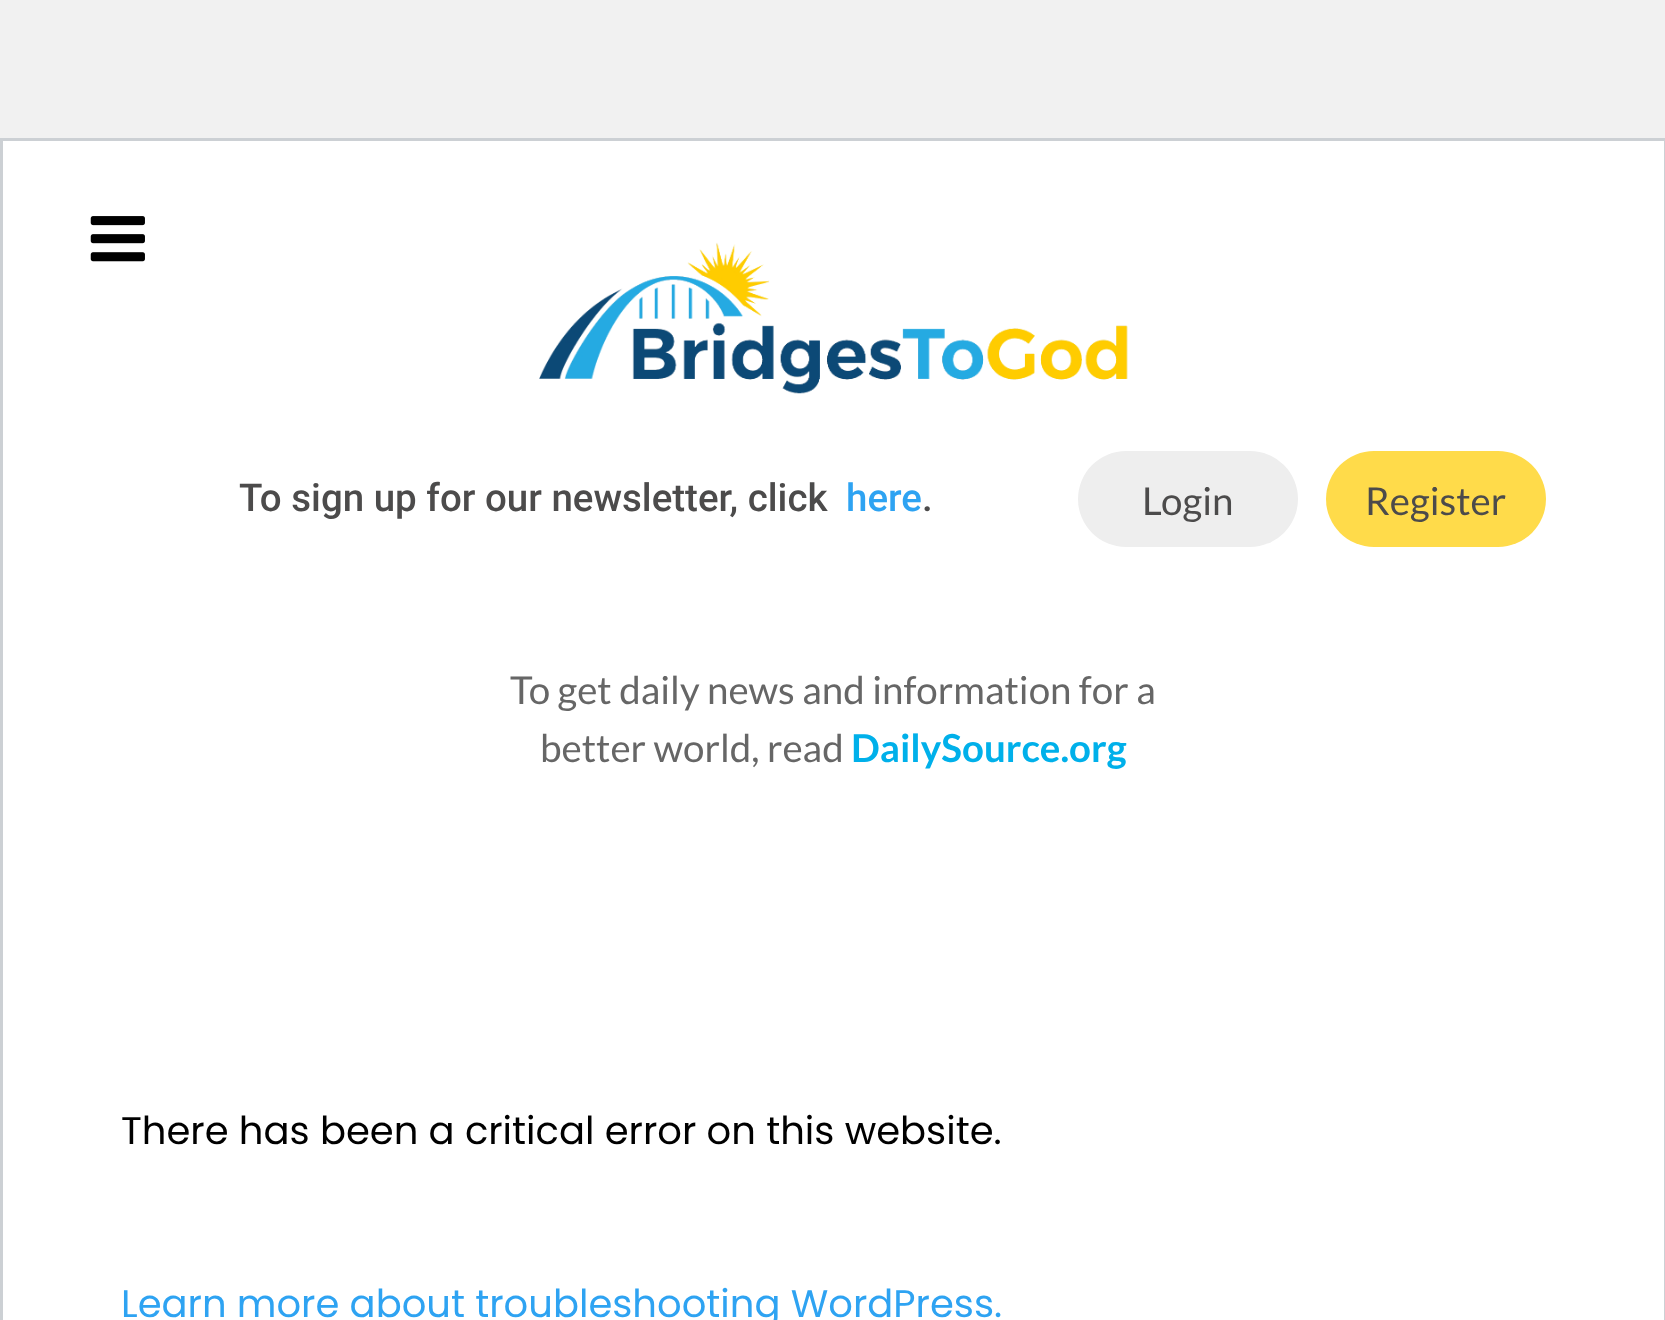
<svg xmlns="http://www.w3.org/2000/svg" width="1665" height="1320">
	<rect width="100%" height="100%" fill="#F1F1F1" />
	<rect x="1.5" y="139.5" width="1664" height="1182" fill="#FFFFFF" stroke="#CCD0D4" stroke-width="3" />
	<image x="90" y="216" width="55" height="46" href="assets/img1.png" />
	<image x="539" y="242" width="589" height="152" href="assets/img2.png" />
	<text x="239" y="511" font-family="Roboto" font-size="38.5" font-weight="500" fill="#4C4B4B">To sign up for our newsletter, click</text>
	<text x="846" y="511" font-family="Roboto" font-size="38.5" font-weight="500" fill="#2EA3F2">here</text>
	<text x="922" y="511" font-family="Roboto" font-size="38.5" font-weight="500" fill="#4C4B4B">.</text>
	<rect x="1078" y="451" width="220" height="96" rx="48" fill="#EEEEEE" />
	<text x="1142" y="515" font-family="Lato" font-size="38.5" fill="#4C4B4B">Login</text>
	<rect x="1326" y="451" width="220" height="96" rx="48" fill="#FFDB4A" />
	<text x="1365" y="515" font-family="Lato" font-size="38.5" fill="#4C4B4B">Register</text>
	<g font-family="Lato" font-size="38.5" fill="#666666">
		<text x="510" y="704">To get daily news and information for a</text>
		<text x="540" y="762">better world, read</text>
	</g>
	<text x="851" y="762" font-family="Lato" font-size="38.5" font-weight="700" fill="#00B0EA">DailySource.org</text>
	<text x="121" y="1144" font-family="Poppins" font-size="38.5" fill="#000000">There has been a critical error on this website.</text>
	<text x="121" y="1317" font-family="Poppins" font-size="38.5" fill="#2EA3F2">Learn more about troubleshooting WordPress.</text>
</svg>
